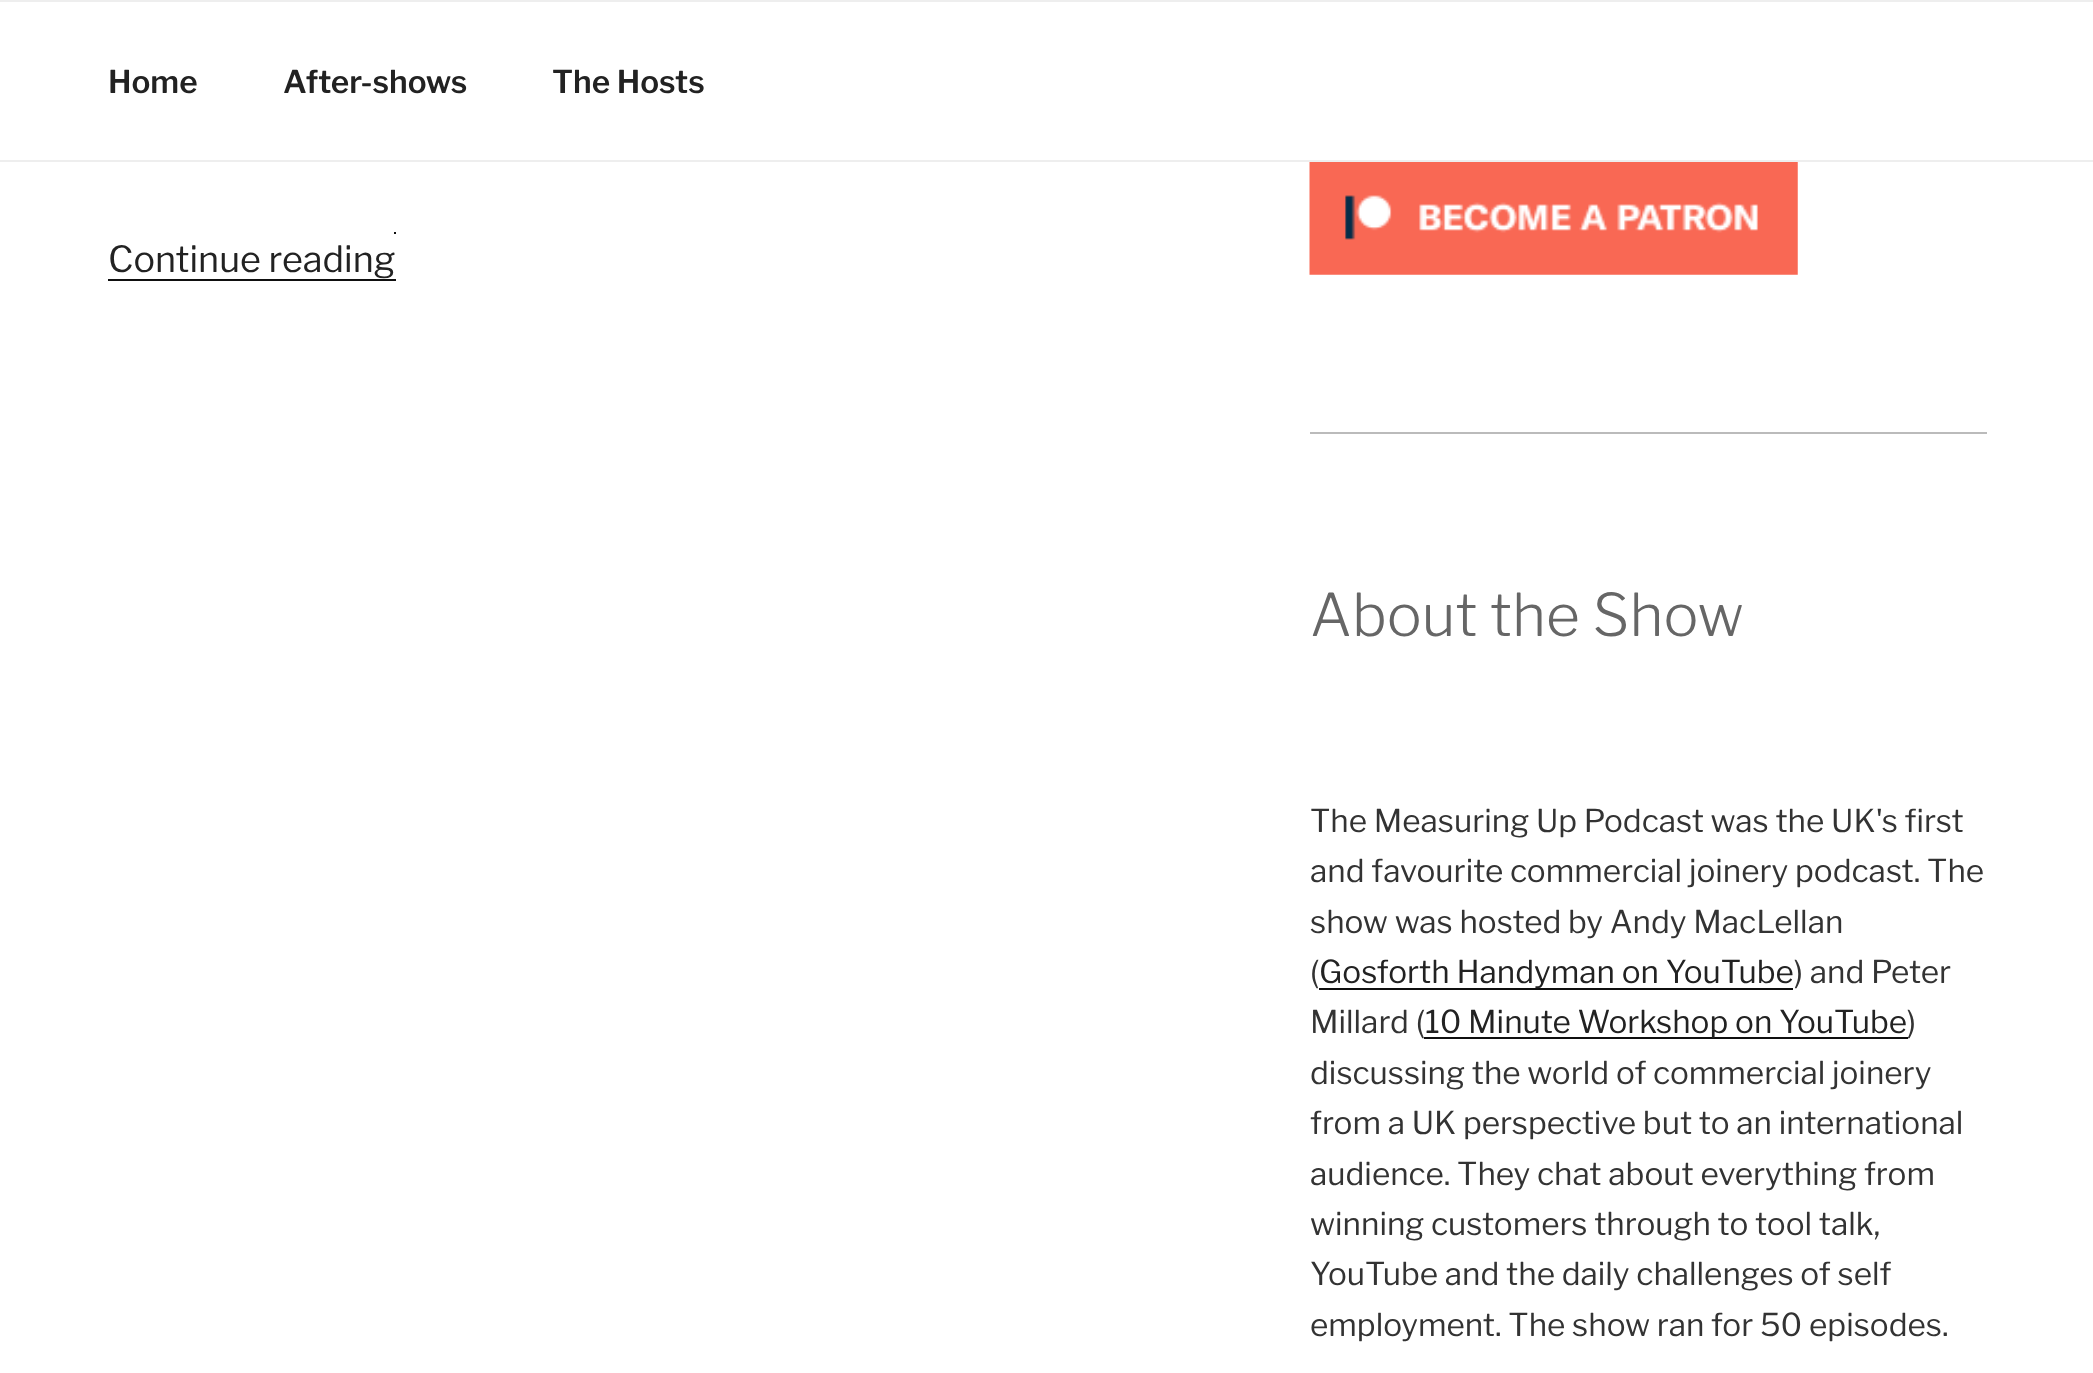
<svg xmlns="http://www.w3.org/2000/svg" width="2093" height="1373">
	<rect width="100%" height="100%" fill="#FFFFFF" />
	<rect x="0" y="0" width="2093" height="2" fill="#EEEEEE" />
	<rect x="0" y="160" width="2093" height="2" fill="#EEEEEE" />
	<g font-family="'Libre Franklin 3'" font-size="31.5" font-weight="100" fill="#222222">
		<text x="108" y="93">Home</text>
		<text x="283" y="93">After-shows</text>
		<text x="552" y="93">The Hosts</text>
	</g>
	<text x="108" y="272" font-family="Libre Franklin" font-size="36" font-weight="100" fill="#222222">Continue reading</text>
	<rect x="108" y="279" width="288" height="2" fill="#0F0F0F" />
	<rect x="394" y="232" width="2" height="2" fill="#0F0F0F" />
	<image x="1309" y="162" width="489" height="113" href="assets/img1.png" />
	<rect x="1310" y="432" width="677" height="2" fill="#BBBBBB" />
	<text x="1310" y="636" font-family="'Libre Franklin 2'" font-size="58.5" font-weight="100" fill="#666666">About the Show</text>
	<g font-family="Libre Franklin" font-size="31.5" font-weight="100" fill="#333333">
		<text x="1310" y="832">The Measuring Up Podcast was the UK's first</text>
		<text x="1310" y="882">and favourite commercial joinery podcast. The</text>
		<text x="1310" y="933">show was hosted by Andy MacLellan</text>
		<text x="1310" y="983">(</text>
	</g>
	<rect x="1319" y="988" width="474" height="2" fill="#0F0F0F" />
	<text x="1319" y="983" font-family="Libre Franklin" font-size="31.5" font-weight="100" fill="#222222">Gosforth Handyman on YouTube</text>
	<g font-family="Libre Franklin" font-size="31.5" font-weight="100" fill="#333333">
		<text x="1794" y="983">) and Peter</text>
		<text x="1310" y="1033">Millard (</text>
	</g>
	<rect x="1424" y="1037" width="484" height="2" fill="#0F0F0F" />
	<text x="1425" y="1033" font-family="Libre Franklin" font-size="31.5" font-weight="100" fill="#222222">10 Minute Workshop on YouTube</text>
	<g font-family="Libre Franklin" font-size="31.5" font-weight="100" fill="#333333">
		<text x="1907" y="1033">)</text>
		<text x="1310" y="1084">discussing the world of commercial joinery</text>
		<text x="1310" y="1134">from a UK perspective but to an international</text>
		<text x="1310" y="1185">audience. They chat about everything from</text>
		<text x="1310" y="1235">winning customers through to tool talk,</text>
		<text x="1310" y="1285">YouTube and the daily challenges of self</text>
		<text x="1310" y="1336">employment. The show ran for 50 episodes.</text>
	</g>
</svg>
